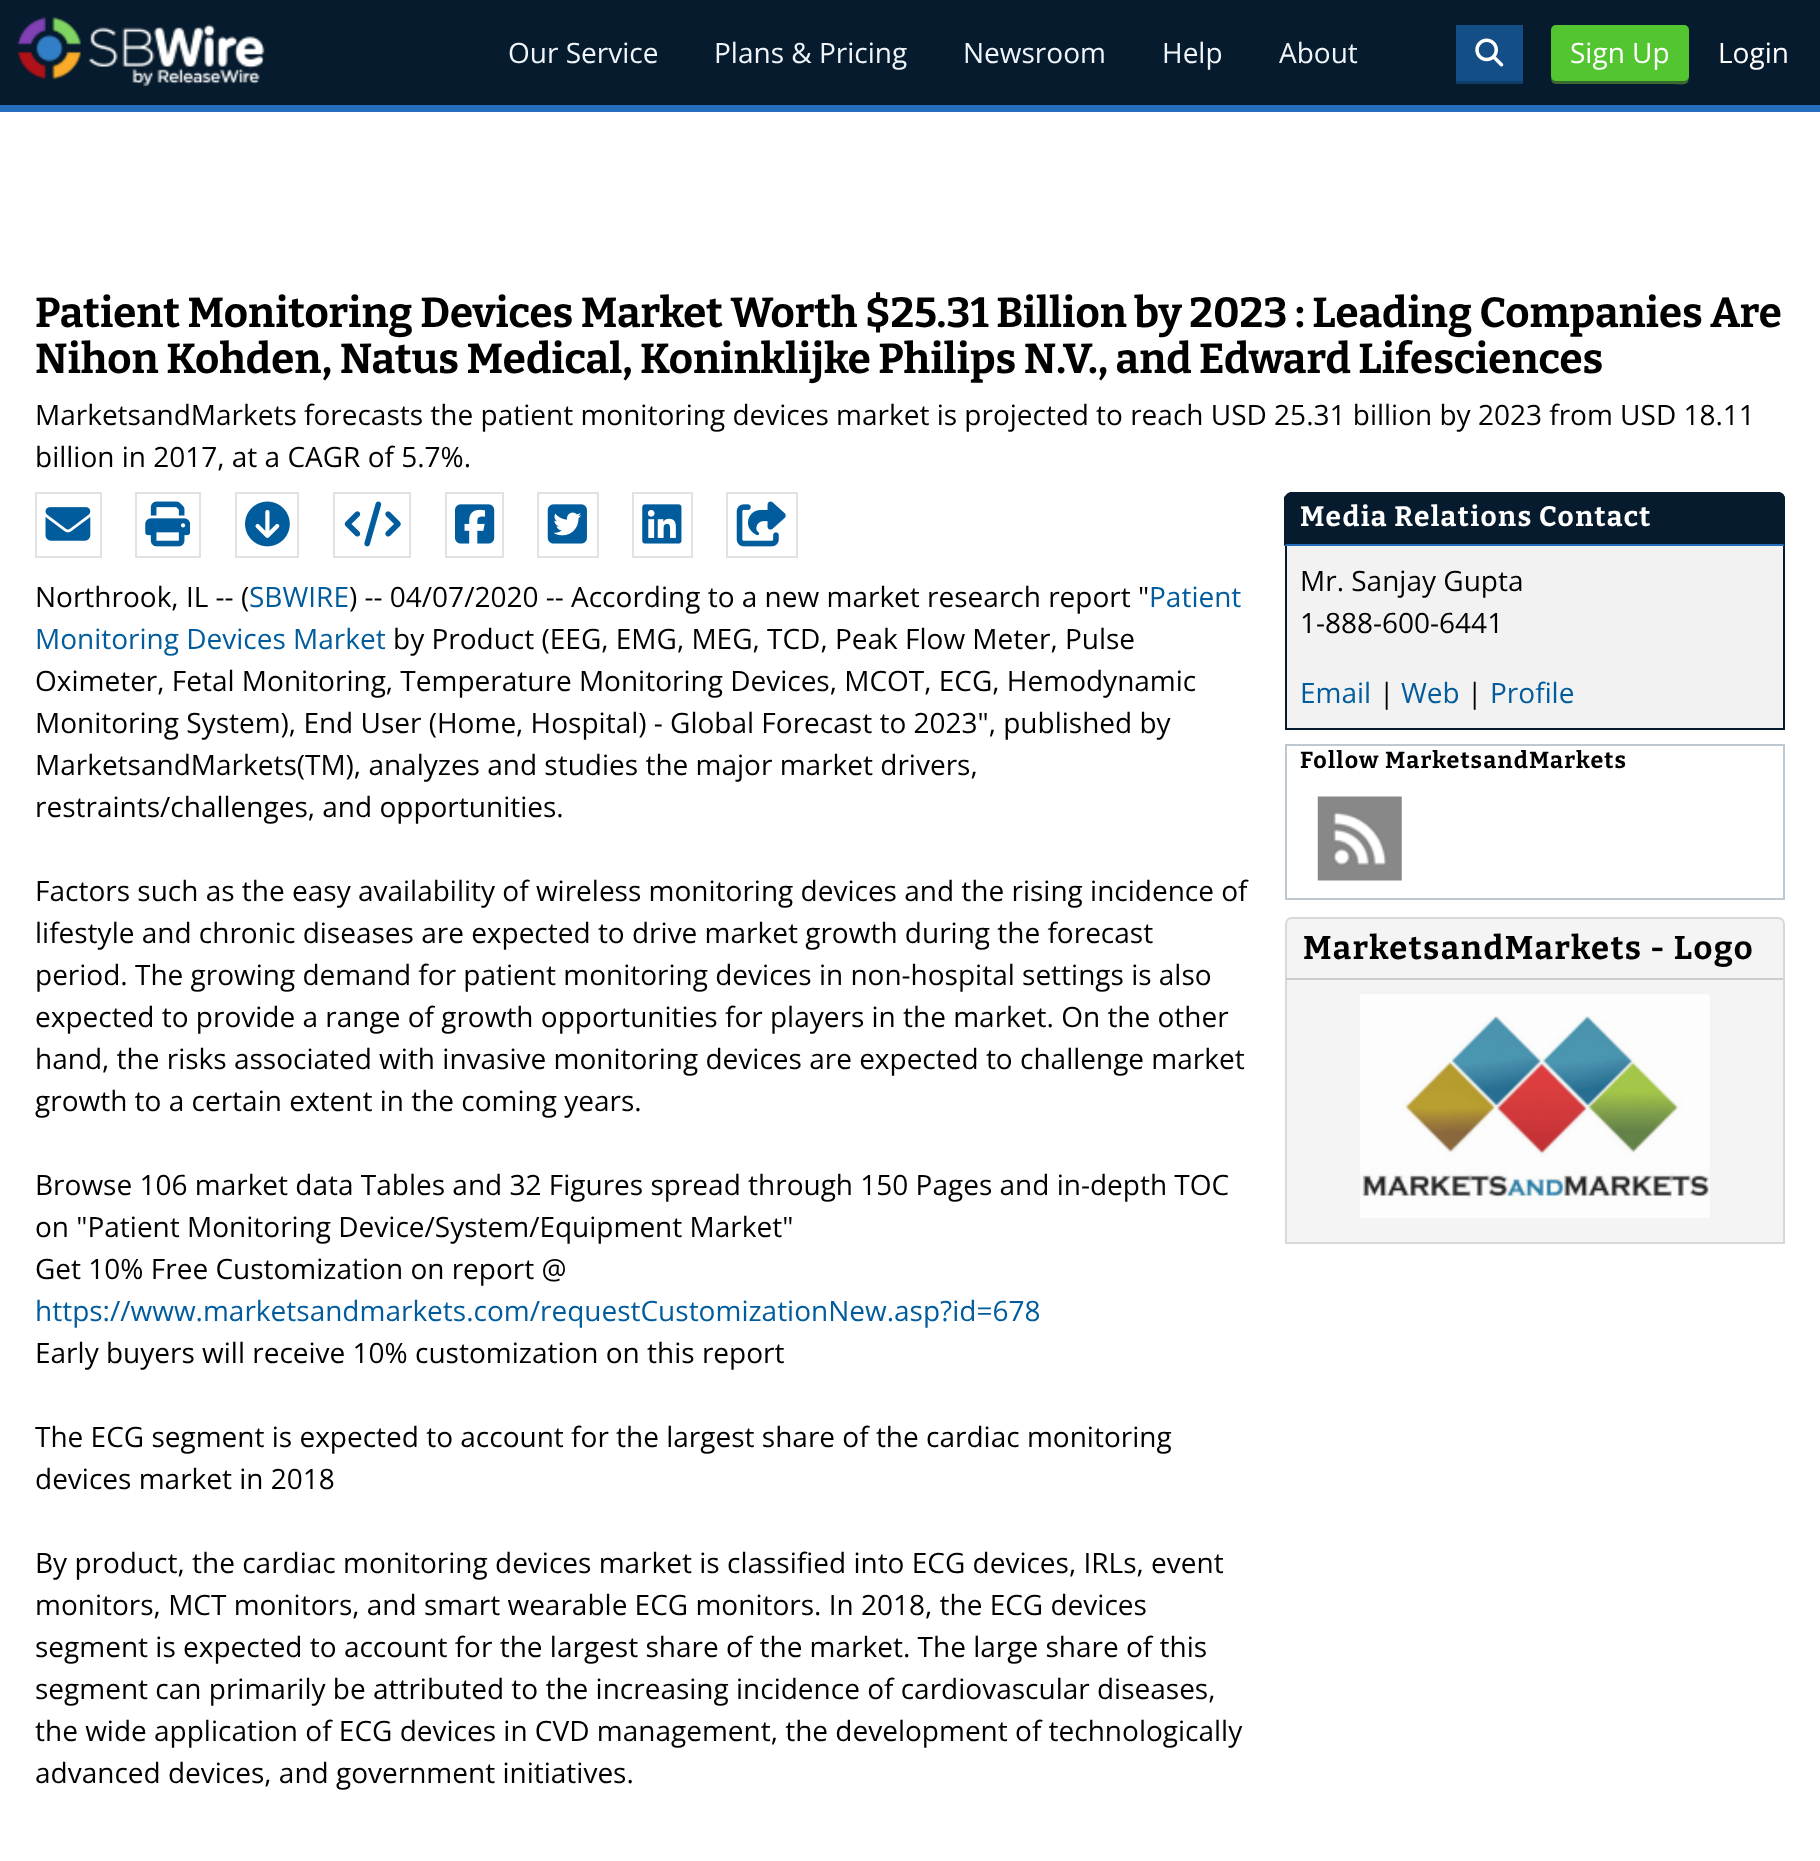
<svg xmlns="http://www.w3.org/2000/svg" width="1820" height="1861">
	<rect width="100%" height="100%" fill="#FFFFFF" />
	<rect x="0" y="0" width="1820" height="105" fill="#061B2D" />
	<rect x="0" y="105" width="1820" height="7" fill="#266FBC" />
	<image x="17" y="17" width="248" height="69" href="assets/img1.png" />
	<g font-family="Open Sans" font-size="28" fill="#EFF5FB">
		<text x="508" y="63">Our Service</text>
		<text x="714" y="63">Plans &amp; Pricing</text>
		<text x="963" y="63">Newsroom</text>
		<text x="1162" y="63">Help</text>
		<text x="1279" y="63">About</text>
	</g>
	<path d="M1456 80V84H1523V28H1522V80Z" fill="#103E6A" />
	<rect x="1456" y="25" width="67" height="56" fill="#134E87" />
	<image x="1475" y="38" width="29" height="29" href="assets/img2.png" />
	<path d="M1551 77C1551 81 1552 84 1556 84H1663C1691 84 1689 89 1689 64V31V75C1689 78 1686 80 1684 80H1556C1554 80 1552 79 1551 77Z" fill="#3B6A2E" />
	<rect x="1551" y="25" width="138" height="56" rx="5" fill="#53C530" />
	<g font-family="Open Sans" font-size="28" fill="#FFFFFF">
		<text x="1570" y="63">Sign Up</text>
		<text x="1718" y="63">Login</text>
	</g>
	<g font-family="Bitter" font-size="42" font-weight="700" fill="#000000">
		<text x="35" y="327">Patient Monitoring Devices Market Worth $25.31 Billion by 2023 : Leading Companies Are</text>
		<text x="35" y="373">Nihon Kohden, Natus Medical, Koninklijke Philips N.V., and Edward Lifesciences</text>
	</g>
	<g font-family="Open Sans" font-size="28" fill="#000000">
		<text x="35" y="425">MarketsandMarkets forecasts the patient monitoring devices market is projected to reach USD 25.31 billion by 2023 from USD 18.11</text>
		<text x="35" y="467">billion in 2017, at a CAGR of 5.7%.</text>
	</g>
	<rect x="36" y="493" width="65" height="64" fill="none" stroke="#E2E2E2" stroke-width="2" />
	<image x="45" y="507" width="46" height="34" href="assets/img3.png" />
	<rect x="136" y="493" width="64" height="64" fill="none" stroke="#E2E2E2" stroke-width="2" />
	<image x="145" y="501" width="46" height="46" href="assets/img4.png" />
	<rect x="236" y="493" width="62" height="64" fill="none" stroke="#E2E2E2" stroke-width="2" />
	<image x="245" y="501" width="45" height="46" href="assets/img5.png" />
	<rect x="334" y="493" width="76" height="64" fill="none" stroke="#E2E2E2" stroke-width="2" />
	<image x="344" y="501" width="57" height="46" href="assets/img6.png" />
	<rect x="446" y="493" width="57" height="64" fill="none" stroke="#E2E2E2" stroke-width="2" />
	<image x="455" y="504" width="40" height="40" href="assets/img7.png" />
	<rect x="538" y="493" width="60" height="64" fill="none" stroke="#E2E2E2" stroke-width="2" />
	<image x="547" y="504" width="40" height="40" href="assets/img8.png" />
	<rect x="633" y="493" width="59" height="64" fill="none" stroke="#E2E2E2" stroke-width="2" />
	<image x="642" y="504" width="40" height="40" href="assets/img9.png" />
	<rect x="727" y="493" width="70" height="64" fill="none" stroke="#E2E2E2" stroke-width="2" />
	<image x="736" y="501" width="50" height="46" href="assets/img10.png" />
	<text x="35" y="607" font-family="Open Sans" font-size="28" fill="#000000">Northrook, IL -- (</text>
	<text x="249" y="607" font-family="Open Sans" font-size="28" fill="#005C9C">SBWIRE</text>
	<text x="349" y="607" font-family="Open Sans" font-size="28" fill="#000000">) -- 04/07/2020 -- According to a new market research report "</text>
	<g font-family="Open Sans" font-size="28" fill="#005C9C">
		<text x="1149" y="607">Patient</text>
		<text x="35" y="649">Monitoring Devices Market</text>
	</g>
	<g font-family="Open Sans" font-size="28" fill="#000000">
		<text x="393" y="649">by Product (EEG, EMG, MEG, TCD, Peak Flow Meter, Pulse</text>
		<text x="35" y="691">Oximeter, Fetal Monitoring, Temperature Monitoring Devices, MCOT, ECG, Hemodynamic</text>
		<text x="35" y="733">Monitoring System), End User (Home, Hospital) - Global Forecast to 2023", published by</text>
		<text x="35" y="775">MarketsandMarkets(TM), analyzes and studies the major market drivers,</text>
		<text x="35" y="817">restraints/challenges, and opportunities.</text>
		<text x="35" y="901">Factors such as the easy availability of wireless monitoring devices and the rising incidence of</text>
		<text x="35" y="943">lifestyle and chronic diseases are expected to drive market growth during the forecast</text>
		<text x="35" y="985">period. The growing demand for patient monitoring devices in non-hospital settings is also</text>
		<text x="35" y="1027">expected to provide a range of growth opportunities for players in the market. On the other</text>
		<text x="35" y="1069">hand, the risks associated with invasive monitoring devices are expected to challenge market</text>
		<text x="35" y="1111">growth to a certain extent in the coming years.</text>
		<text x="35" y="1195">Browse 106 market data Tables and 32 Figures spread through 150 Pages and in-depth TOC</text>
		<text x="35" y="1237">on "Patient Monitoring Device/System/Equipment Market"</text>
		<text x="35" y="1279">Get 10% Free Customization on report @</text>
	</g>
	<text x="35" y="1321" font-family="Open Sans" font-size="28" fill="#005C9C">https://www.marketsandmarkets.com/requestCustomizationNew.asp?id=678</text>
	<g font-family="Open Sans" font-size="28" fill="#000000">
		<text x="35" y="1363">Early buyers will receive 10% customization on this report</text>
		<text x="35" y="1447">The ECG segment is expected to account for the largest share of the cardiac monitoring</text>
		<text x="35" y="1489">devices market in 2018</text>
		<text x="35" y="1573">By product, the cardiac monitoring devices market is classified into ECG devices, IRLs, event</text>
		<text x="35" y="1615">monitors, MCT monitors, and smart wearable ECG monitors. In 2018, the ECG devices</text>
		<text x="35" y="1657">segment is expected to account for the largest share of the market. The large share of this</text>
		<text x="35" y="1699">segment can primarily be attributed to the increasing incidence of cardiovascular diseases,</text>
		<text x="35" y="1741">the wide application of ECG devices in CVD management, the development of technologically</text>
		<text x="35" y="1783">advanced devices, and government initiatives.</text>
	</g>
	<path d="M1292 492H1778C1782 492 1785 495 1785 499V546H1285V499C1285 495 1288 492 1292 492Z" fill="#061B2D" />
	<path d="M1292 492C1290 492 1288 493 1287 494L1288 495C1289 494 1291 494 1292 494H1778C1779 494 1781 494 1781 495L1783 494C1782 493 1780 492 1778 492Z" fill="#061B2D" />
	<path d="M1783 494C1784 495 1785 497 1785 499V546L1783 544V499C1783 497 1782 496 1781 495Z" fill="#061B2D" />
	<path d="M1785 546L1783 544H1286L1284 546Z" fill="#266FBC" />
	<path d="M1284 546L1286 544V499C1286 497 1287 496 1288 495L1287 494L1284 497Z" fill="#061B2D" />
	<text x="1300" y="526" font-family="Bitter" font-size="28" font-weight="700" letter-spacing="1.4" fill="#FFFFFF">Media Relations Contact</text>
	<rect x="1287" y="546" width="496" height="182" fill="#F2F2F2" />
	<rect x="1783" y="546" width="2" height="184" fill="#061B2D" />
	<rect x="1285" y="728" width="500" height="2" fill="#061B2D" />
	<rect x="1285" y="546" width="2" height="184" fill="#061B2D" />
	<g font-family="Open Sans" font-size="28" fill="#000000">
		<text x="1300" y="591">Mr. Sanjay Gupta</text>
		<text x="1300" y="633">1-888-600-6441</text>
	</g>
	<text x="1300" y="703" font-family="Open Sans" font-size="28" fill="#005C9C">Email</text>
	<text x="1379" y="703" font-family="Open Sans" font-size="28" fill="#000000">|</text>
	<text x="1401" y="703" font-family="Open Sans" font-size="28" fill="#005C9C">Web</text>
	<text x="1467" y="703" font-family="Open Sans" font-size="28" fill="#000000">|</text>
	<text x="1490" y="703" font-family="Open Sans" font-size="28" fill="#005C9C">Profile</text>
	<rect x="1286" y="745" width="498" height="154" fill="none" stroke="#BDC8D1" stroke-width="2" />
	<text x="1300" y="768" font-family="Bitter" font-size="23.25" font-weight="700" letter-spacing="1.2" fill="#000000">Follow MarketsandMarkets</text>
	<image x="1317" y="796" width="85" height="85" href="assets/img11.png" />
	<path d="M1292 918H1778C1781.5 918 1784 920.5 1784 924V1243H1286V924C1286 920.5 1288.5 918 1292 918Z" fill="#F4F4F4" stroke="#D6D8DA" stroke-width="2" />
	<rect x="1286" y="978" width="497" height="2" fill="#CCCCCC" />
	<text x="1303" y="959" font-family="Bitter" font-size="32.75" font-weight="700" letter-spacing="1.6" fill="#000000">MarketsandMarkets - Logo</text>
	<image x="1360" y="994" width="350" height="224" href="assets/img12.png" />
</svg>
